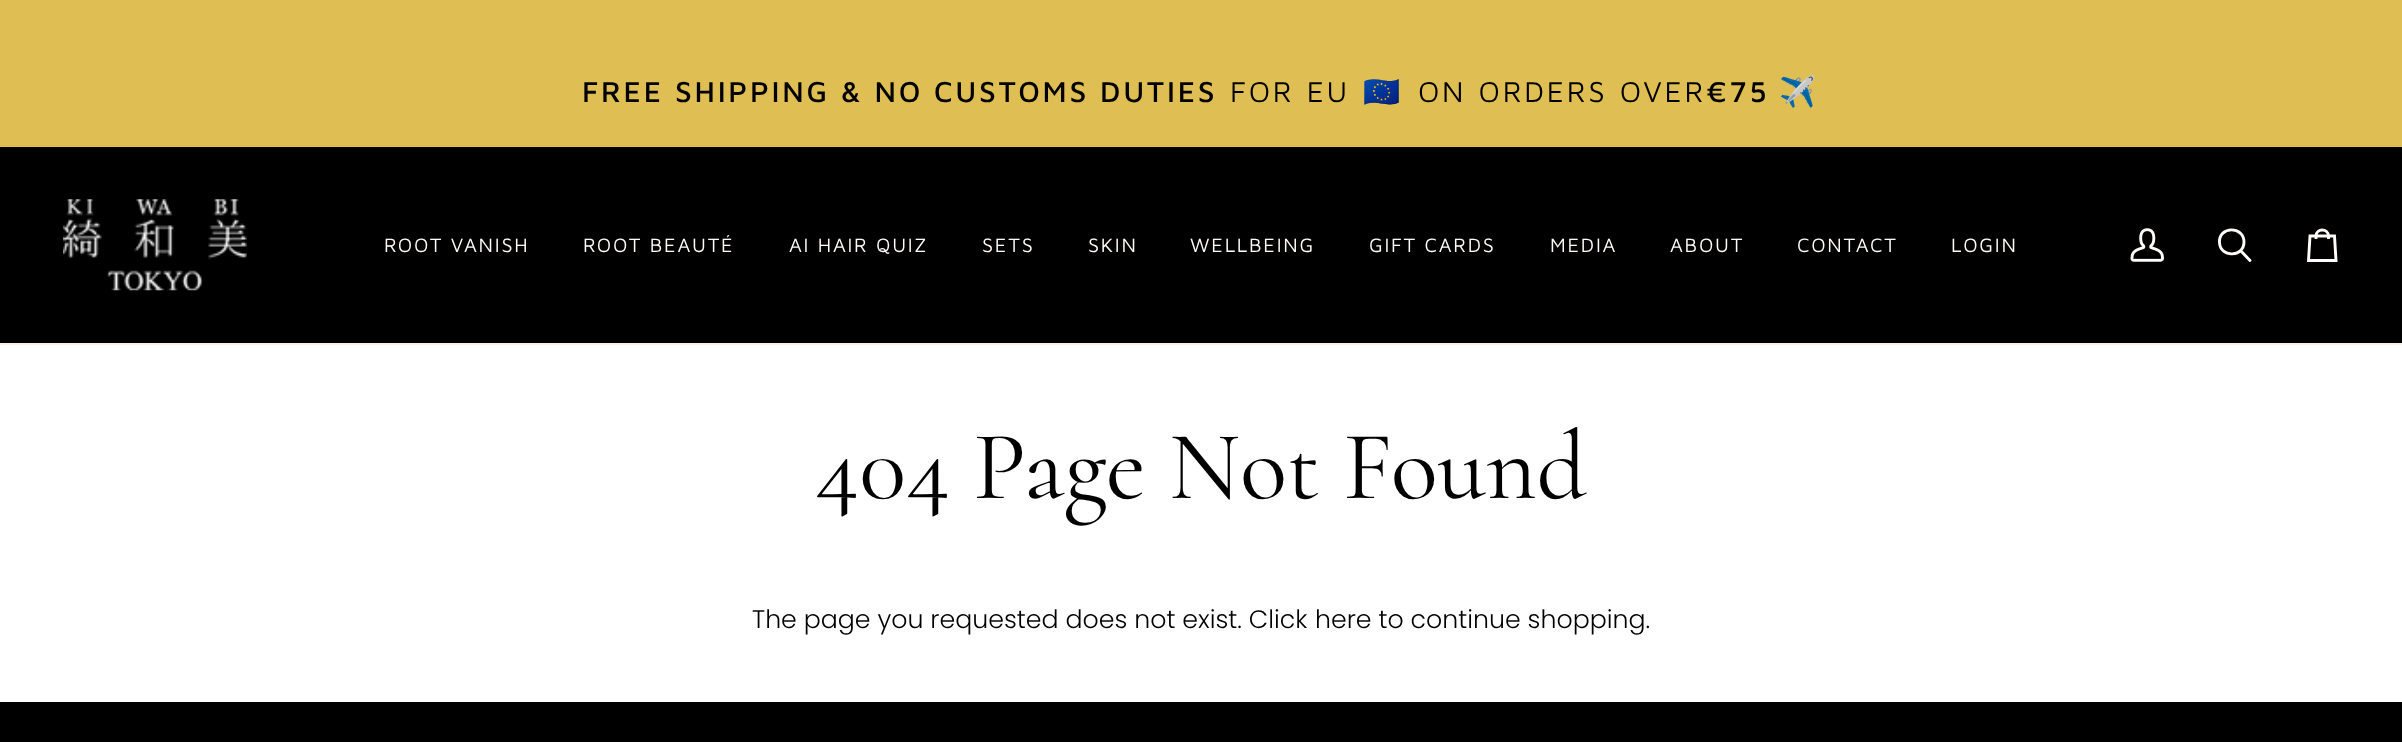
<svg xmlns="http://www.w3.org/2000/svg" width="2402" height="742">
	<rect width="100%" height="100%" fill="#FFFFFF" />
	<rect x="0" y="0" width="2402" height="147" fill="#DFBE54" />
	<text x="582" y="102" font-family="Maven Pro" font-size="29.75" font-weight="500" letter-spacing="2.7" fill="#000000">FREE SHIPPING &amp; NO CUSTOMS DUTIES</text>
	<text x="1230" y="102" word-spacing="1" font-family="Maven Pro" font-size="29.75" letter-spacing="2.7" fill="#000000">FOR EU</text>
	<text x="1363" y="102" font-family="Noto Color Emoji" font-size="29.75" letter-spacing="2.7" fill="#000000">🇪🇺</text>
	<text x="1418" y="102" word-spacing="1" font-family="Maven Pro" font-size="29.75" letter-spacing="2.7" fill="#000000">ON ORDERS OVER</text>
	<text x="1706" y="102" font-family="Maven Pro" font-size="29.75" font-weight="500" letter-spacing="2.7" fill="#000000">€75</text>
	<text x="1779" y="102" font-family="Noto Color Emoji" font-size="29.75" letter-spacing="2.7" fill="#000000">✈️</text>
	<rect x="0" y="147" width="2402" height="196" fill="#000000" />
	<rect x="0" y="343" width="2402" height="2" fill="#F8F0E7" />
	<image x="63" y="199" width="184" height="92" href="assets/img1.png" />
	<g font-family="Maven Pro" font-size="20" letter-spacing="1.75" fill="#FFFCF9">
		<text x="384" y="252">ROOT VANISH</text>
		<text x="583" y="252">ROOT BEAUTÉ</text>
		<text x="789" y="252">AI HAIR QUIZ</text>
		<text x="982" y="252">SETS</text>
		<text x="1088" y="252">SKIN</text>
		<text x="1190" y="252">WELLBEING</text>
		<text x="1369" y="252">GIFT CARDS</text>
		<text x="1550" y="252">MEDIA</text>
		<text x="1670" y="252">ABOUT</text>
		<text x="1797" y="252">CONTACT</text>
		<text x="1951" y="252">LOGIN</text>
	</g>
	<image x="2130" y="228" width="34" height="34" href="assets/img2.png" />
	<path d="M2244 242C2244 257.5 2220 258 2219.5 242.5C2218.5 226 2244 225.5 2244 242ZM2250 260.5L2240.5 250.5Z" fill="none" stroke="#FFFCF9" stroke-width="2.9" stroke-linecap="round" stroke-linejoin="round" />
	<path d="M2328.5 239V236H2334.5L2336 260.5H2308.5L2310 236H2316C2316 228 2328.5 228 2328.5 236H2316V239" fill="none" stroke="#FFFCF9" stroke-width="2.9" />
	<text x="815" y="498" font-family="Cormorant" font-size="98" fill="#000000">404 Page Not Found</text>
	<g font-family="Poppins" font-size="25.25" font-weight="300" fill="#000000">
		<text x="752" y="628">The page you requested does not exist. Click</text>
		<text x="1315" y="628">here to continue shopping.</text>
	</g>
	<rect x="0" y="702" width="2402" height="40" fill="#000000" />
</svg>
